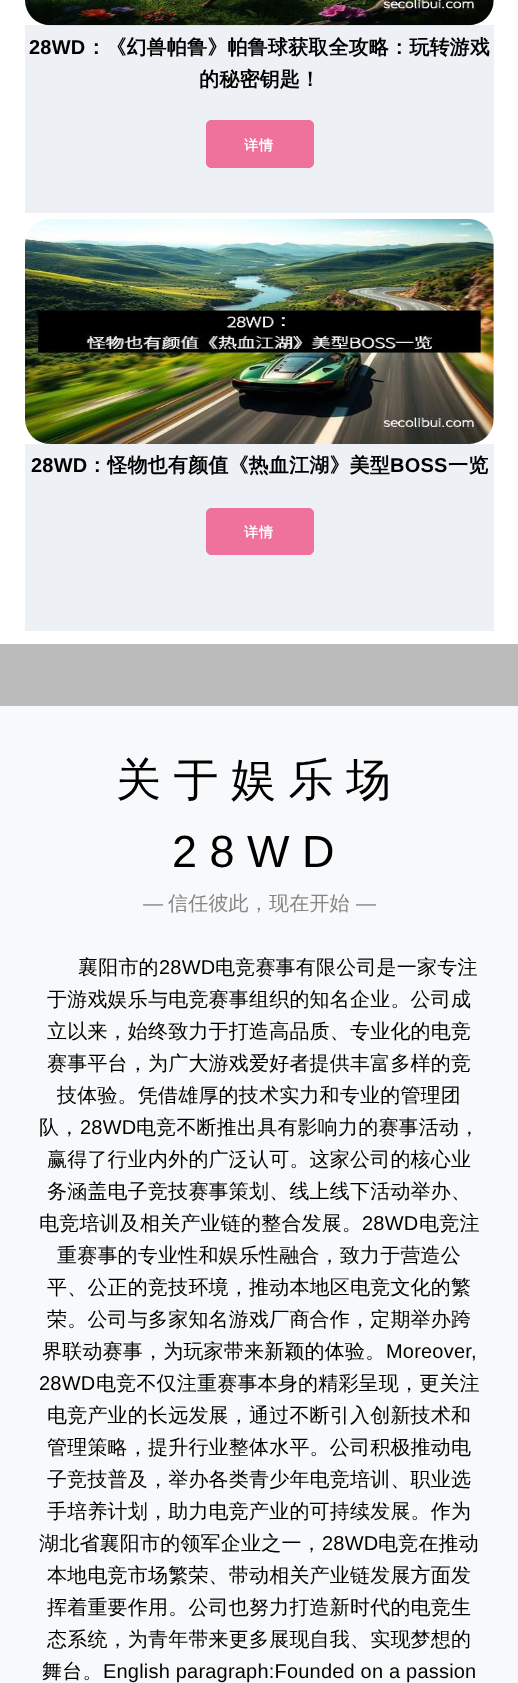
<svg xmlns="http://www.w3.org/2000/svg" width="518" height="1683">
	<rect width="100%" height="100%" fill="#FFFFFF" />
	<rect x="25" y="25" width="469" height="188" fill="#EDF0F4" />
	<image x="25" y="0" width="469" height="26" href="assets/img1.png" />
	<text x="29" y="54" font-family="Liberation Sans" font-size="20" font-weight="700" letter-spacing="0.2" fill="#000000">28WD</text>
	<g font-family="WenQuanYi Zen Hei" font-size="20" font-weight="700" letter-spacing="0.2" fill="#000000">
		<text x="86" y="54">：《幻兽帕鲁》帕鲁球获取全攻略：玩转游戏</text>
		<text x="199" y="86">的秘密钥匙！</text>
	</g>
	<rect x="206.5" y="120.5" width="107" height="47" rx="4.5" fill="#EE729C" stroke="#EE729C" />
	<text x="244" y="150" font-family="WenQuanYi Zen Hei" font-size="14" font-weight="700" letter-spacing="1" fill="#FFFFFF">详情</text>
	<image x="25" y="219" width="469" height="225" href="assets/img2.png" />
	<rect x="25" y="444" width="469" height="187" fill="#EDF0F4" />
	<text x="31" y="472" font-family="Liberation Sans" font-size="20" font-weight="700" letter-spacing="0.2" fill="#000000">28WD</text>
	<text x="87" y="472" font-family="WenQuanYi Zen Hei" font-size="20" font-weight="700" letter-spacing="0.2" fill="#000000">：怪物也有颜值《热血江湖》美型</text>
	<text x="390" y="472" font-family="Liberation Sans" font-size="20" font-weight="700" letter-spacing="0.2" fill="#000000">BOSS</text>
	<text x="448" y="472" font-family="WenQuanYi Zen Hei" font-size="20" font-weight="700" letter-spacing="0.2" fill="#000000">一览</text>
	<rect x="206.5" y="508.5" width="107" height="46" rx="4.5" fill="#EE729C" stroke="#EE729C" />
	<text x="244" y="537" font-family="WenQuanYi Zen Hei" font-size="14" font-weight="700" letter-spacing="1" fill="#FFFFFF">详情</text>
	<rect x="0" y="644" width="518" height="62" fill="#BBBBBB" />
	<rect x="0" y="706" width="518" height="977" fill="#F8F9FA" />
	<text x="116" y="795" font-family="WenQuanYi Zen Hei" font-size="45" font-weight="500" letter-spacing="12.5" fill="#000000">关于娱乐场</text>
	<text x="172" y="867" font-family="Liberation Sans" font-size="45" letter-spacing="12.5" fill="#000000">28WD</text>
	<text x="143" y="910" font-family="Liberation Sans" font-size="20" letter-spacing="0.2" fill="#858585">—</text>
	<text x="168" y="910" font-family="WenQuanYi Zen Hei" font-size="20" font-weight="500" letter-spacing="0.2" fill="#858585">信任彼此，现在开始</text>
	<text x="356" y="910" font-family="Liberation Sans" font-size="20" letter-spacing="0.2" fill="#858585">—</text>
	<text x="78" y="974" font-family="WenQuanYi Zen Hei" font-size="20" font-weight="500" letter-spacing="0.2" fill="#000000">襄阳市的</text>
	<text x="159" y="974" font-family="Liberation Sans" font-size="20" letter-spacing="0.2" fill="#000000">28WD</text>
	<g font-family="WenQuanYi Zen Hei" font-size="20" font-weight="500" letter-spacing="0.2" fill="#000000">
		<text x="215" y="974">电竞赛事有限公司是一家专注</text>
		<text x="47" y="1006">于游戏娱乐与电竞赛事组织的知名企业。公司成</text>
		<text x="47" y="1038">立以来，始终致力于打造高品质、专业化的电竞</text>
		<text x="47" y="1070">赛事平台，为广大游戏爱好者提供丰富多样的竞</text>
		<text x="57" y="1102">技体验。凭借雄厚的技术实力和专业的管理团</text>
		<text x="39" y="1134">队，</text>
	</g>
	<text x="80" y="1134" font-family="Liberation Sans" font-size="20" letter-spacing="0.2" fill="#000000">28WD</text>
	<g font-family="WenQuanYi Zen Hei" font-size="20" font-weight="500" letter-spacing="0.2" fill="#000000">
		<text x="136" y="1134">电竞不断推出具有影响力的赛事活动，</text>
		<text x="47" y="1166">赢得了行业内外的广泛认可。这家公司的核心业</text>
		<text x="47" y="1198">务涵盖电子竞技赛事策划、线上线下活动举办、</text>
		<text x="39" y="1230">电竞培训及相关产业链的整合发展。</text>
	</g>
	<text x="362" y="1230" font-family="Liberation Sans" font-size="20" letter-spacing="0.2" fill="#000000">28WD</text>
	<g font-family="WenQuanYi Zen Hei" font-size="20" font-weight="500" letter-spacing="0.2" fill="#000000">
		<text x="419" y="1230">电竞注</text>
		<text x="57" y="1262">重赛事的专业性和娱乐性融合，致力于营造公</text>
		<text x="47" y="1294">平、公正的竞技环境，推动本地区电竞文化的繁</text>
		<text x="47" y="1326">荣。公司与多家知名游戏厂商合作，定期举办跨</text>
		<text x="42" y="1358">界联动赛事，为玩家带来新颖的体验。</text>
	</g>
	<g font-family="Liberation Sans" font-size="20" letter-spacing="0.2" fill="#000000">
		<text x="386" y="1358">Moreover,</text>
		<text x="39" y="1390">28WD</text>
	</g>
	<g font-family="WenQuanYi Zen Hei" font-size="20" font-weight="500" letter-spacing="0.2" fill="#000000">
		<text x="96" y="1390">电竞不仅注重赛事本身的精彩呈现，更关注</text>
		<text x="47" y="1422">电竞产业的长远发展，通过不断引入创新技术和</text>
		<text x="47" y="1454">管理策略，提升行业整体水平。公司积极推动电</text>
		<text x="47" y="1486">子竞技普及，举办各类青少年电竞培训、职业选</text>
		<text x="47" y="1518">手培养计划，助力电竞产业的可持续发展。作为</text>
		<text x="39" y="1550">湖北省襄阳市的领军企业之一，</text>
	</g>
	<text x="322" y="1550" font-family="Liberation Sans" font-size="20" letter-spacing="0.2" fill="#000000">28WD</text>
	<g font-family="WenQuanYi Zen Hei" font-size="20" font-weight="500" letter-spacing="0.2" fill="#000000">
		<text x="378" y="1550">电竞在推动</text>
		<text x="47" y="1582">本地电竞市场繁荣、带动相关产业链发展方面发</text>
		<text x="47" y="1614">挥着重要作用。公司也努力打造新时代的电竞生</text>
		<text x="47" y="1646">态系统，为青年带来更多展现自我、实现梦想的</text>
		<text x="42" y="1678">舞台。</text>
	</g>
	<text x="103" y="1678" font-family="Liberation Sans" font-size="20" letter-spacing="0.2" fill="#000000">English paragraph:Founded on a passion</text>
</svg>
